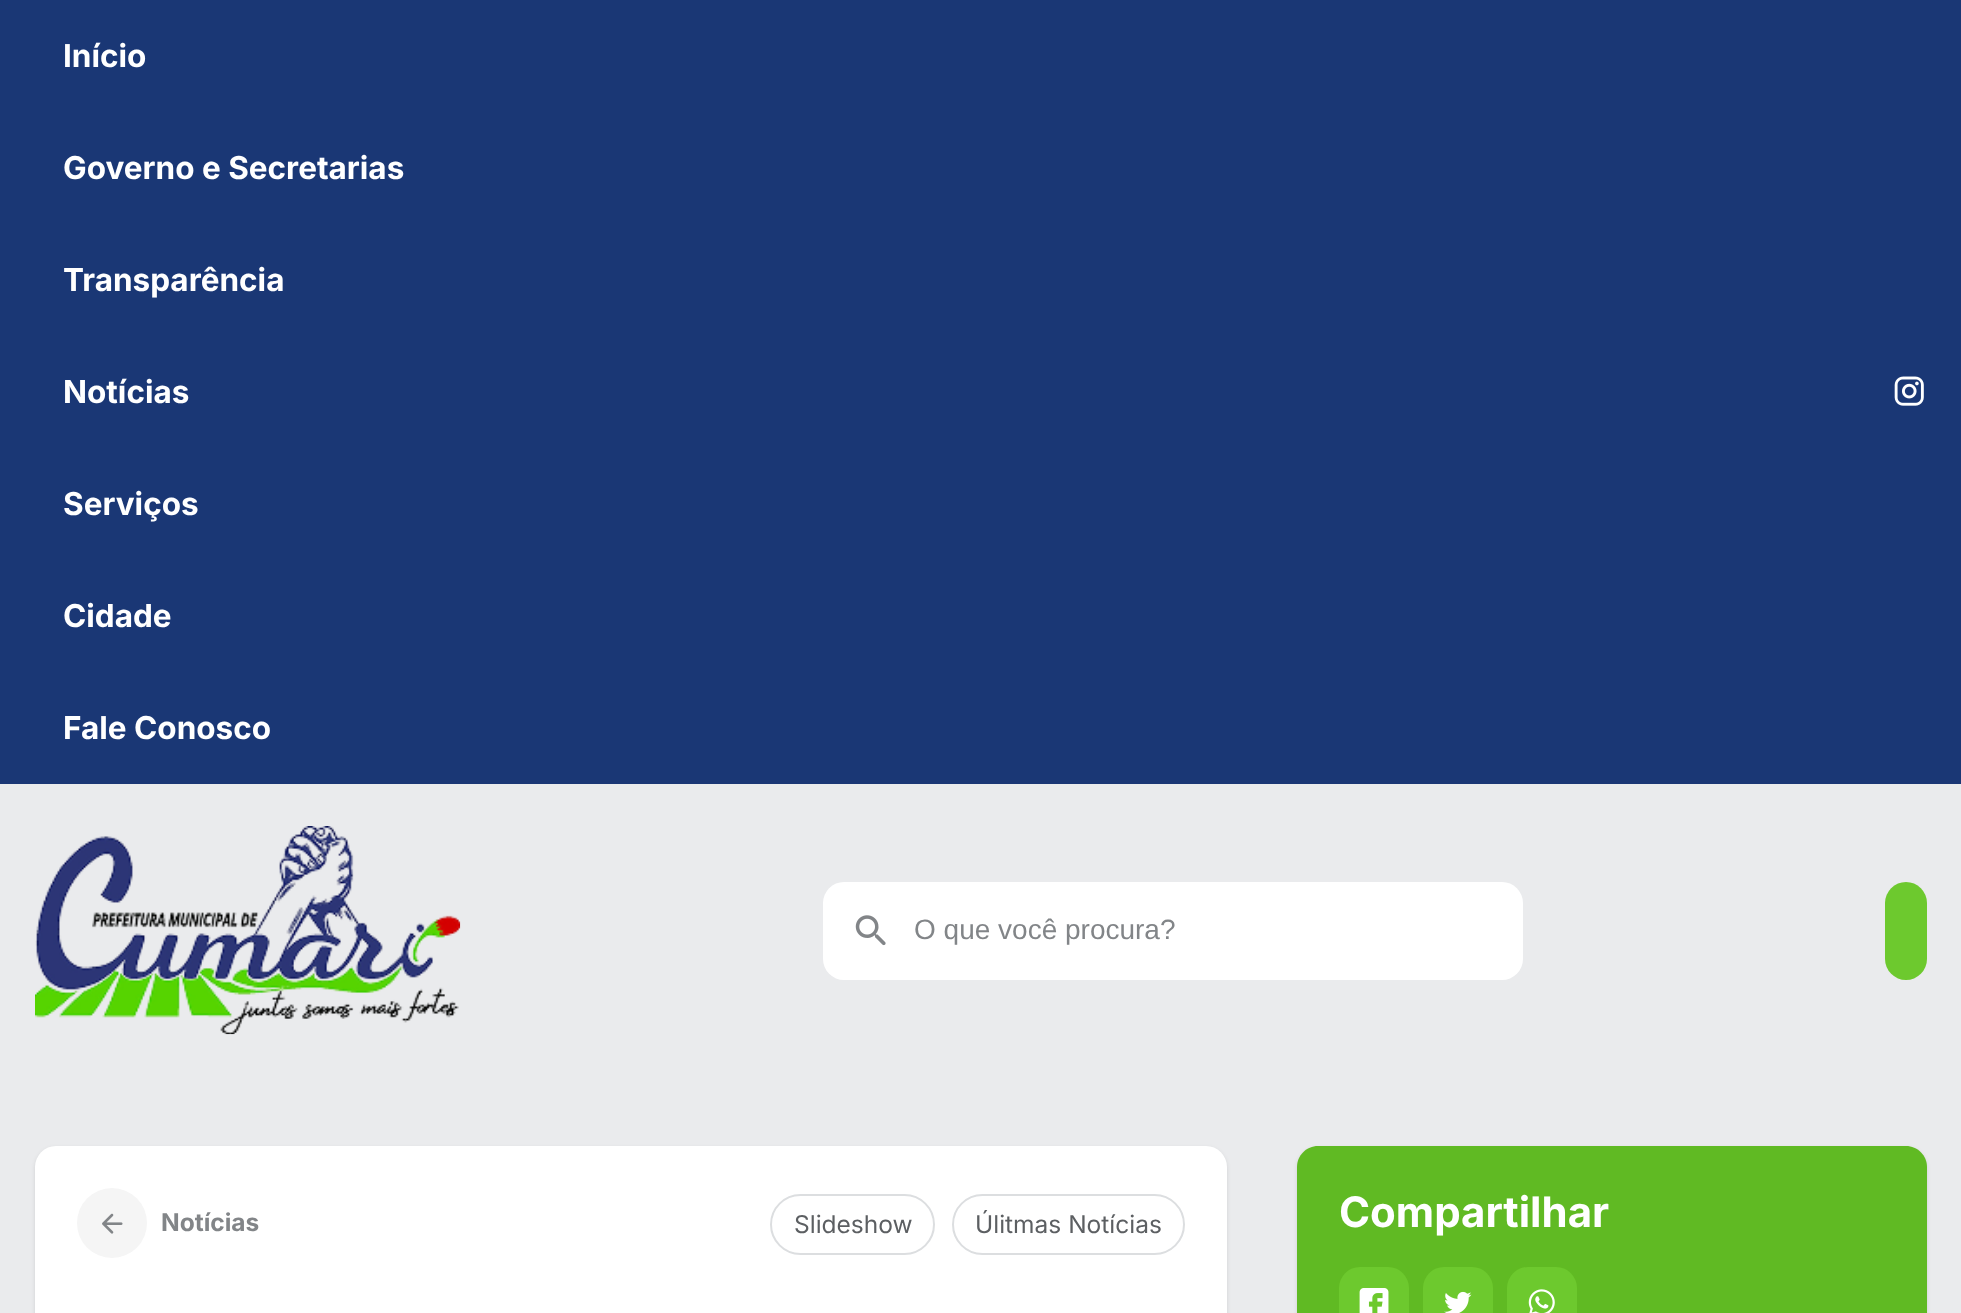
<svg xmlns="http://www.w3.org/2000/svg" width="1961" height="1313">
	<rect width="100%" height="100%" fill="#EAEBED" />
	<rect x="0" y="0" width="1961" height="784" fill="#1A3775" />
	<g font-family="Inter" font-size="31.5" font-weight="700" fill="#FFFFFF">
		<text x="63" y="67">Início</text>
		<text x="63" y="179">Governo e Secretarias</text>
		<text x="63" y="291">Transparência</text>
		<text x="63" y="403">Notícias</text>
		<text x="63" y="515">Serviços</text>
		<text x="63" y="627">Cidade</text>
		<text x="63" y="739">Fale Conosco</text>
	</g>
	<image x="1894" y="376" width="30" height="30" href="assets/img1.png" />
	<image x="35" y="826" width="426" height="209" href="assets/img2.png" />
	<rect x="823" y="882" width="700" height="98" rx="21" fill="#FFFFFF" />
	<image x="855" y="915" width="31" height="31" href="assets/img3.png" />
	<text x="914" y="939" font-family="Liberation Sans" font-size="28" fill="#828588">O que você procura?</text>
	<rect x="1885" y="882" width="42" height="98" rx="21" fill="#6DC92E" />
	<rect x="35" y="1148" width="1192" height="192" rx="21" fill="#000000" fill-opacity="0.1" filter="blur(2px)" />
	<rect x="35" y="1146" width="1192" height="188" rx="21" fill="#FFFFFF" />
	<circle cx="112" cy="1223" r="35" fill="#F5F5F5" />
	<image x="102" y="1213" width="21" height="21" href="assets/img4.png" />
	<text x="161" y="1231" font-family="Inter" font-size="24.5" font-weight="700" fill="#828588">Notícias</text>
	<rect x="771" y="1195" width="163" height="59" rx="29.5" fill="none" stroke="#DCDEE0" stroke-width="2" />
	<text x="794" y="1233" font-family="Inter" font-size="24.5" fill="#5C5F62">Slideshow</text>
	<rect x="953" y="1195" width="231" height="59" rx="29.5" fill="none" stroke="#DCDEE0" stroke-width="2" />
	<text x="975" y="1233" font-family="Inter" font-size="24.5" fill="#5C5F62">Úlitmas Notícias</text>
	<rect x="1297" y="1148" width="630" height="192" rx="21" fill="#000000" fill-opacity="0.1" filter="blur(2px)" />
	<path d="M1318 1146H1906C1917.5 1146 1927 1155.5 1927 1167V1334H1297V1167C1297 1155.5 1306.5 1146 1318 1146Z" fill="#60BA23" />
	<text x="1339" y="1227" font-family="Inter" font-size="42" font-weight="700" fill="#FFFFFF">Compartilhar</text>
	<rect x="1339" y="1267" width="70" height="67" rx="21" fill="#6DC92E" />
	<image x="1359" y="1288" width="30" height="25" href="assets/img5.png" />
	<rect x="1423" y="1267" width="70" height="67" rx="21" fill="#6DC92E" />
	<image x="1444" y="1291" width="28" height="22" href="assets/img6.png" />
	<rect x="1507" y="1267" width="70" height="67" rx="21" fill="#6DC92E" />
	<image x="1528" y="1289" width="27" height="24" href="assets/img7.png" />
</svg>
